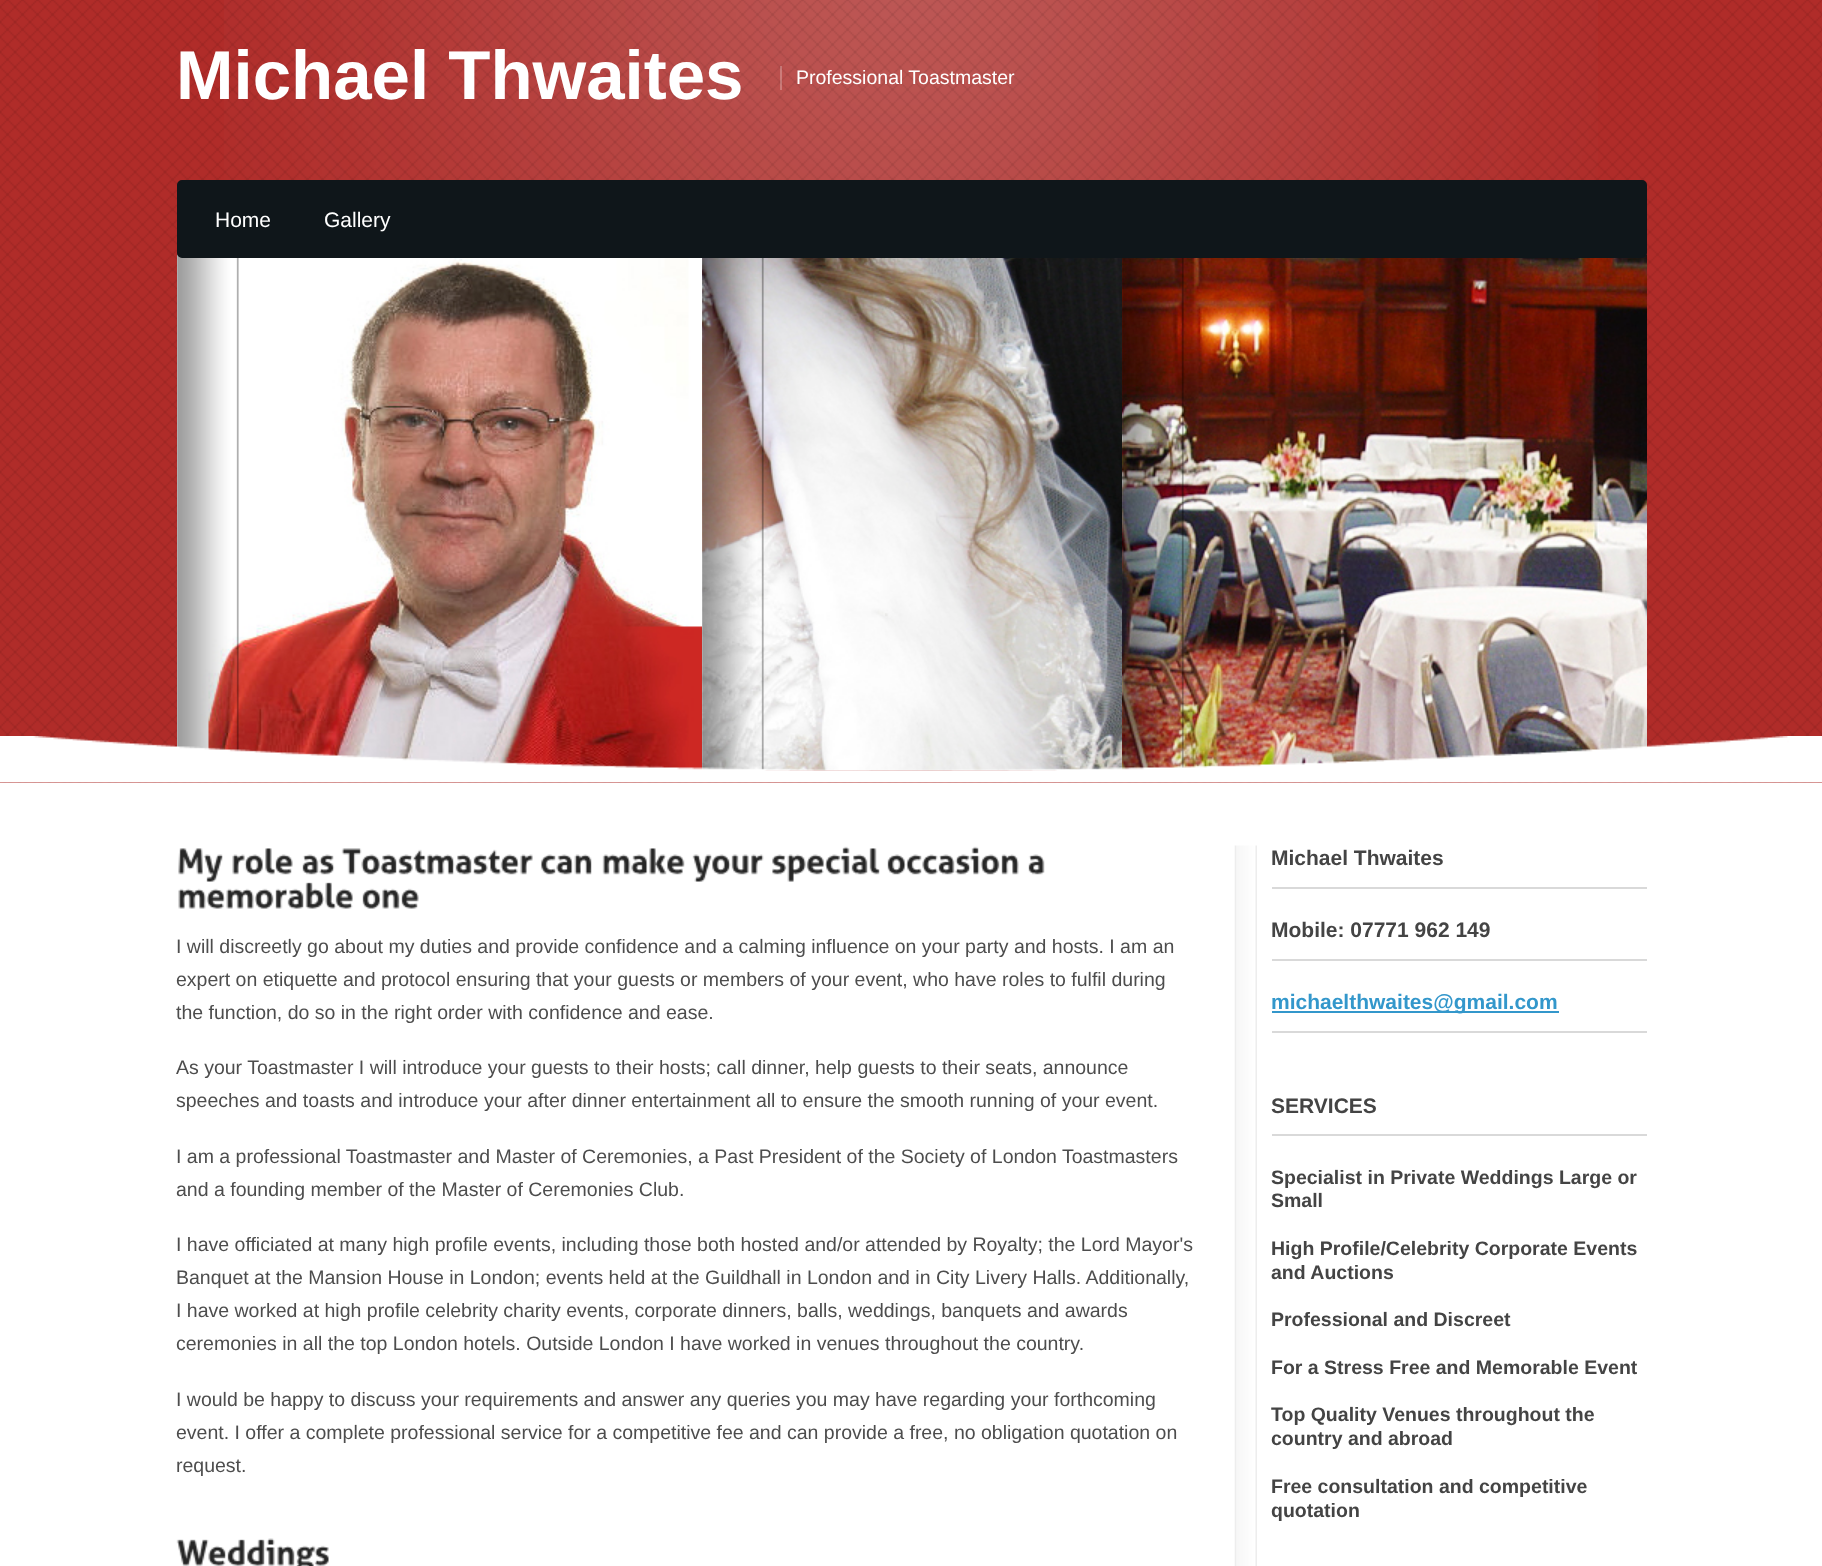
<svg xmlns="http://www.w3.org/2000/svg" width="1822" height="1566">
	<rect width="100%" height="100%" fill="#B02C29" />
	<image x="224" y="0" width="1374" height="180" href="assets/img1.png" />
	<image x="0" y="0" width="1822" height="783" href="assets/img2.png" />
	<text x="176" y="99" font-family="Liberation Sans" font-size="69" font-weight="700" fill="#FFFFFF">Michael Thwaites</text>
	<rect x="780" y="66" width="2" height="24" fill="#FFFFFF" fill-opacity="0.25" />
	<text x="796" y="84" font-family="Liberation Sans" font-size="19.5" fill="#FFFFFF">Professional Toastmaster</text>
	<image x="177" y="254" width="1" height="1" href="assets/img3.png" />
	<image x="177" y="254" width="525" height="516" href="assets/img4.png" />
	<image x="177" y="254" width="62" height="498" href="assets/img5.png" />
	<image x="1122" y="254" width="525" height="516" href="assets/img8.png" />
	<rect x="178" y="181" width="1468" height="76" rx="4" fill="#0F161A" stroke="#0F161A" stroke-width="2" />
	<g font-family="Liberation Sans" font-size="21" fill="#FFFFFF">
		<text x="215" y="227">Home</text>
		<text x="324" y="227">Gallery</text>
	</g>
	<image x="702" y="258" width="420" height="513" href="assets/img6.png" />
	<image x="702" y="258" width="62" height="512" href="assets/img7.png" />
	<image x="1122" y="258" width="62" height="512" href="assets/img9.png" />
	<rect x="0" y="783" width="1822" height="783" fill="#FFFFFF" />
	<image x="0" y="736" width="1822" height="47" href="assets/img10.png" />
	<image x="178" y="848" width="45" height="34" href="assets/img11.png" />
	<image x="232" y="848" width="61" height="27" href="assets/img12.png" />
	<image x="302" y="854" width="33" height="21" href="assets/img13.png" />
	<image x="341" y="848" width="192" height="27" href="assets/img14.png" />
	<image x="541" y="854" width="51" height="21" href="assets/img15.png" />
	<image x="602" y="848" width="83" height="27" href="assets/img16.png" />
	<image x="692" y="854" width="72" height="28" href="assets/img17.png" />
	<image x="772" y="846" width="108" height="36" href="assets/img18.png" />
	<image x="887" y="846" width="132" height="29" href="assets/img19.png" />
	<image x="1028" y="854" width="17" height="21" href="assets/img20.png" />
	<image x="178" y="882" width="175" height="27" href="assets/img21.png" />
	<image x="362" y="888" width="57" height="21" href="assets/img22.png" />
	<g font-family="Liberation Sans" font-size="19.5" fill="#4D4D4D">
		<text x="176" y="953">I will discreetly go about my duties and provide confidence and a calming influence on your party and hosts. I am an</text>
		<text x="176" y="986">expert on etiquette and protocol ensuring that your guests or members of your event, who have roles to fulfil during</text>
		<text x="176" y="1019">the function, do so in the right order with confidence and ease.</text>
		<text x="176" y="1074">As your Toastmaster I will introduce your guests to their hosts; call dinner, help guests to their seats, announce</text>
		<text x="176" y="1107">speeches and toasts and introduce your after dinner entertainment all to ensure the smooth running of your event.</text>
		<text x="176" y="1163">I am a professional Toastmaster and Master of Ceremonies, a Past President of the Society of London Toastmasters</text>
		<text x="176" y="1196">and a founding member of the Master of Ceremonies Club.</text>
		<text x="176" y="1251">I have officiated at many high profile events, including those both hosted and/or attended by Royalty; the Lord Mayor's</text>
		<text x="176" y="1284">Banquet at the Mansion House in London; events held at the Guildhall in London and in City Livery Halls. Additionally,</text>
		<text x="176" y="1317">I have worked at high profile celebrity charity events, corporate dinners, balls, weddings, banquets and awards</text>
		<text x="176" y="1350">ceremonies in all the top London hotels. Outside London I have worked in venues throughout the country.</text>
		<text x="176" y="1406">I would be happy to discuss your requirements and answer any queries you may have regarding your forthcoming</text>
		<text x="176" y="1439">event. I offer a complete professional service for a competitive fee and can provide a free, no obligation quotation on</text>
		<text x="176" y="1472">request.</text>
	</g>
	<image x="176" y="1538" width="153" height="28" href="assets/img23.png" />
	<image x="1234" y="845" width="23" height="248" href="assets/img24.png" />
	<rect x="1272" y="887" width="375" height="2" fill="#D9D9D9" />
	<text x="1271" y="865" font-family="Liberation Sans" font-size="21" font-weight="700" fill="#444444">Michael Thwaites</text>
	<rect x="1272" y="959" width="375" height="2" fill="#D9D9D9" />
	<text x="1271" y="937" font-family="Liberation Sans" font-size="21" font-weight="700" fill="#444444">Mobile: 07771 962 149</text>
	<rect x="1272" y="1031" width="375" height="2" fill="#D9D9D9" />
	<rect x="1272" y="1011" width="287" height="2" fill="#3397CB" />
	<text x="1271" y="1009" font-family="Liberation Sans" font-size="21" font-weight="700" fill="#3397CB">michaelthwaites@gmail.com</text>
	<image x="1234" y="1093" width="23" height="473" href="assets/img25.png" />
	<rect x="1272" y="1134" width="375" height="2" fill="#D9D9D9" />
	<text x="1271" y="1113" font-family="Liberation Sans" font-size="21" font-weight="700" fill="#444444">SERVICES</text>
	<g font-family="Liberation Sans" font-size="19.5" font-weight="700" fill="#444444">
		<text x="1271" y="1184">Specialist in Private Weddings Large or</text>
		<text x="1271" y="1207">Small</text>
		<text x="1271" y="1255">High Profile/Celebrity Corporate Events</text>
		<text x="1271" y="1279">and Auctions</text>
		<text x="1271" y="1326">Professional and Discreet</text>
		<text x="1271" y="1374">For a Stress Free and Memorable Event</text>
		<text x="1271" y="1421">Top Quality Venues throughout the</text>
		<text x="1271" y="1445">country and abroad</text>
		<text x="1271" y="1493">Free consultation and competitive</text>
		<text x="1271" y="1517">quotation</text>
	</g>
</svg>
